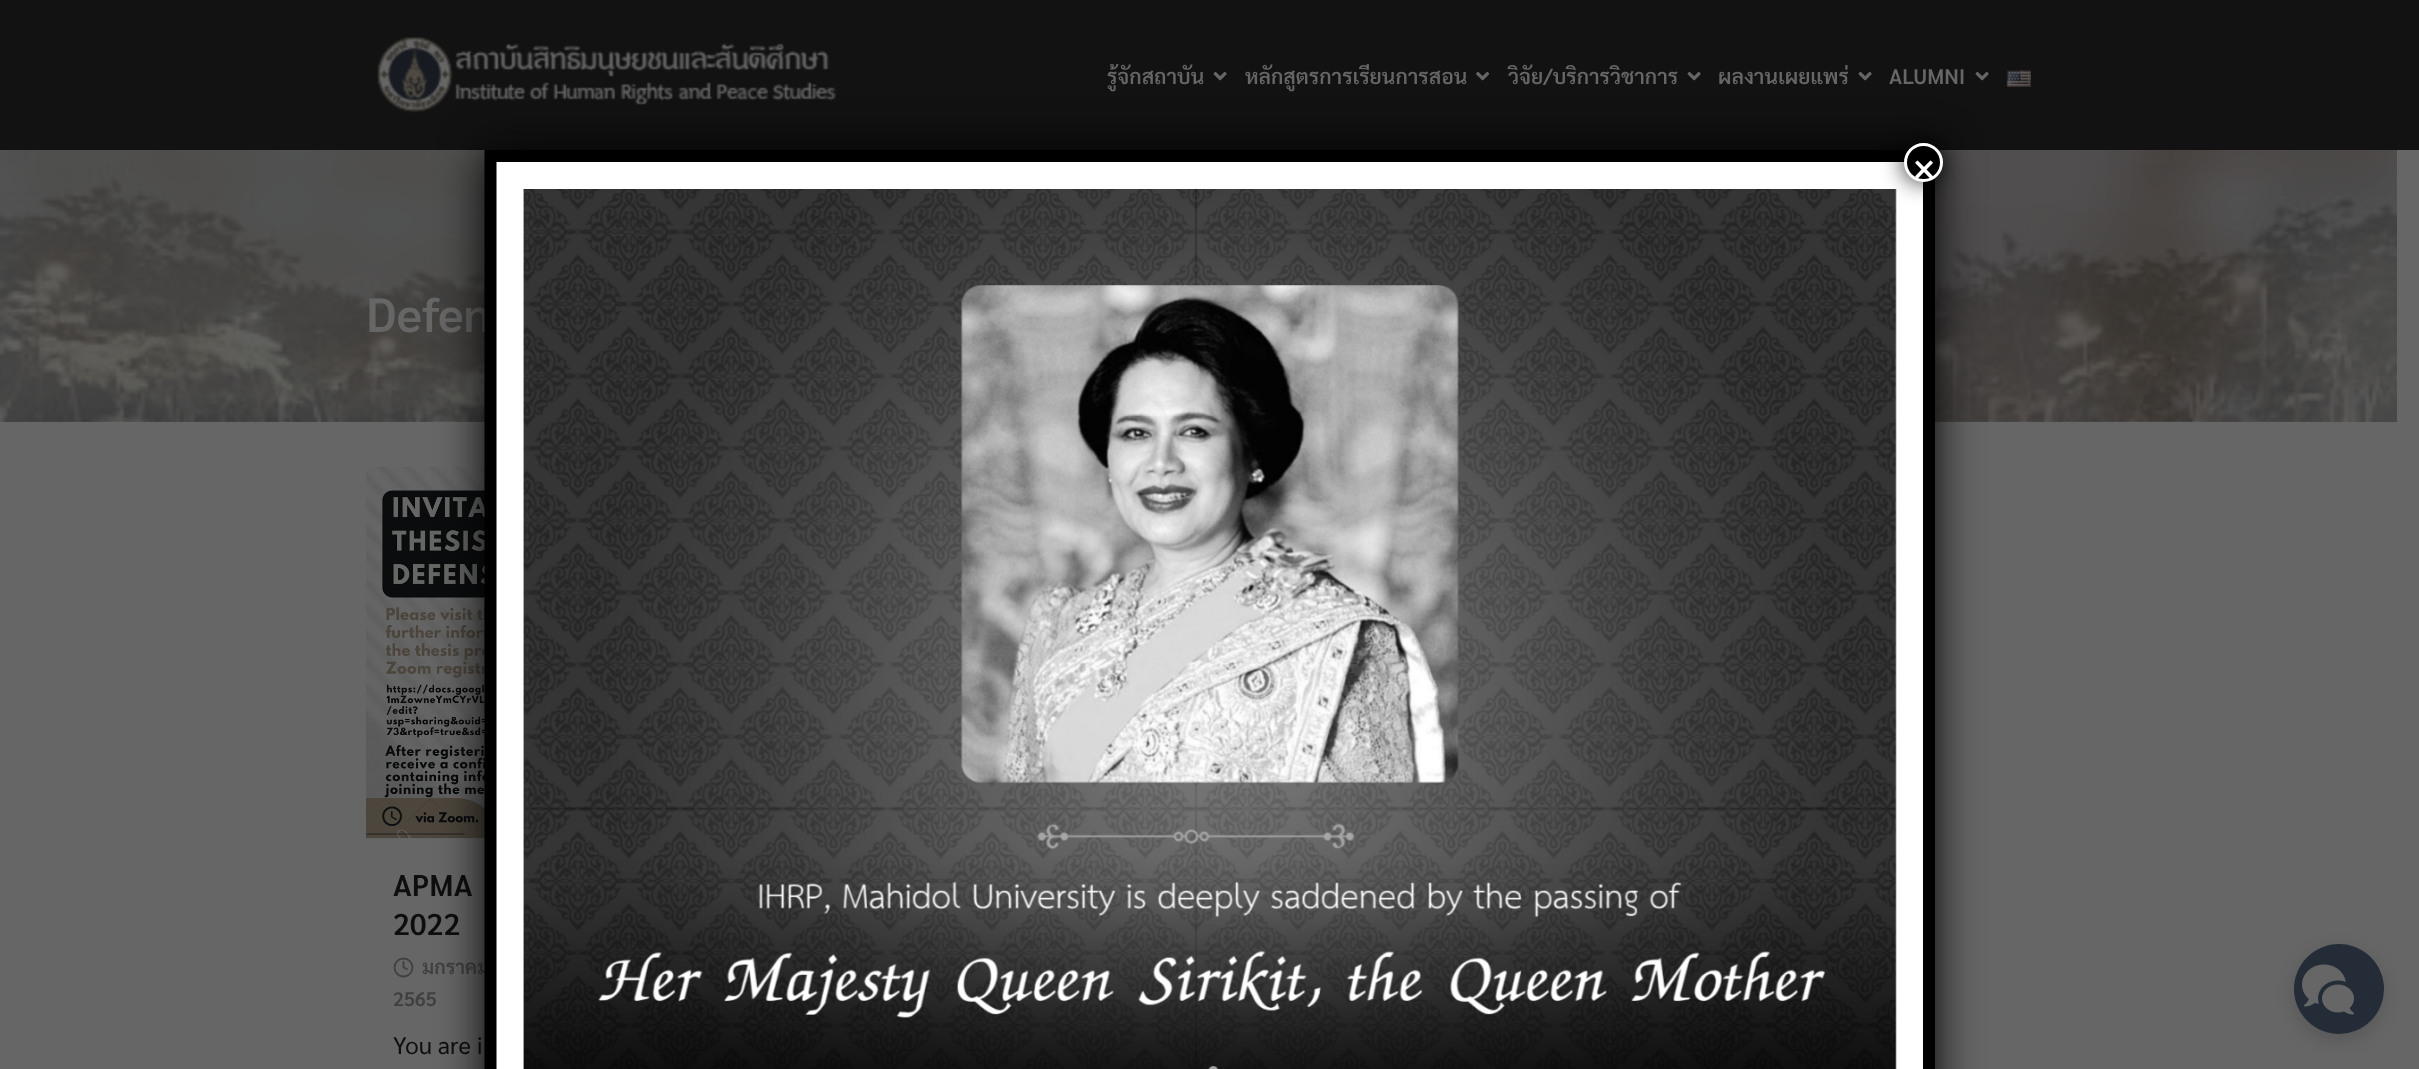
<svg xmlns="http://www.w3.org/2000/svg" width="2419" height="1069">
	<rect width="100%" height="100%" fill="#666666" />
	<rect x="0" y="0" width="2419" height="150" fill="#121212" />
	<image x="377" y="37" width="460" height="76" href="assets/img1.png" />
	<text x="1107" y="84" font-family="Sarabun" font-size="21" font-weight="600" fill="#666666">รู้จักสถาบัน</text>
	<image x="1213" y="71" width="14" height="10" href="assets/img2.png" />
	<text x="1245" y="84" font-family="Sarabun" font-size="21" font-weight="600" fill="#666666">หลักสูตรการเรียนการสอน</text>
	<image x="1476" y="71" width="14" height="10" href="assets/img3.png" />
	<text x="1508" y="84" font-family="Sarabun" font-size="21" font-weight="600" fill="#666666">วิจัย/บริการวิชาการ</text>
	<image x="1687" y="71" width="14" height="10" href="assets/img2.png" />
	<text x="1718" y="84" font-family="Sarabun" font-size="21" font-weight="600" fill="#666666">ผลงานเผยแพร่</text>
	<image x="1858" y="71" width="14" height="10" href="assets/img2.png" />
	<text x="1889" y="84" font-family="Sarabun" font-size="21" font-weight="600" fill="#666666">ALUMNI</text>
	<image x="1975" y="71" width="14" height="10" href="assets/img2.png" />
	<image x="2006" y="70" width="25" height="17" href="assets/img4.png" />
	<image x="0" y="150" width="2397" height="272" href="assets/img5.png" />
	<image x="0" y="150" width="2397" height="272" href="assets/img6.png" />
	<text x="366" y="332" font-family="Sarabun" font-size="48" font-weight="600" fill="#666666">Defen</text>
	<image x="366" y="467" width="119" height="372" href="assets/img7.png" />
	<g font-family="Sarabun" font-size="30" font-weight="600" fill="#0E0E0E">
		<text x="393" y="896">APMA</text>
		<text x="393" y="935">2022</text>
	</g>
	<text x="422" y="974" font-family="Sarabun" font-size="19.5" font-weight="600" fill="#3F4040">มกราคม</text>
	<circle cx="403.5" cy="967.5" r="9" fill="none" stroke="#3F4040" stroke-width="1.8" />
	<path d="M403.5 962V967.5L407 969" fill="none" stroke="#3F4040" stroke-width="1.8" stroke-linecap="round" stroke-linejoin="round" />
	<text x="393" y="1006" font-family="Sarabun" font-size="19.5" font-weight="600" fill="#3F4040">2565</text>
	<text x="393" y="1054" font-family="Sarabun" font-size="24" fill="#0E0E0E">You are i</text>
	<rect x="485" y="150" width="1450" height="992" rx="5" fill="#020202" filter="blur(22.5px)" />
	<rect x="496" y="162" width="1427" height="907" fill="#FFFFFF" />
	<path d="M490.5 156H1929V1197H490.5Z" fill="none" stroke="#000000" stroke-width="12" />
	<image x="523" y="189" width="1374" height="880" href="assets/img8.png" />
	<rect x="1902" y="141" width="42" height="42" rx="21" fill="#020202" fill-opacity="0.75" filter="blur(11px)" />
	<circle cx="1923.5" cy="162.5" r="18" fill="#000000" stroke="#FFFFFF" stroke-width="3" />
	<text x="1913" y="179" font-family="Sarabun" font-size="36" font-weight="600" fill="#FFFFFF">×</text>
	<rect x="2294" y="950" width="90" height="90" rx="45" fill="#000000" fill-opacity="0.15" filter="blur(9px)" />
	<circle cx="2339" cy="989" r="45" fill="#242D37" />
	<image x="2302" y="964" width="52" height="51" href="assets/img9.png" />
</svg>
